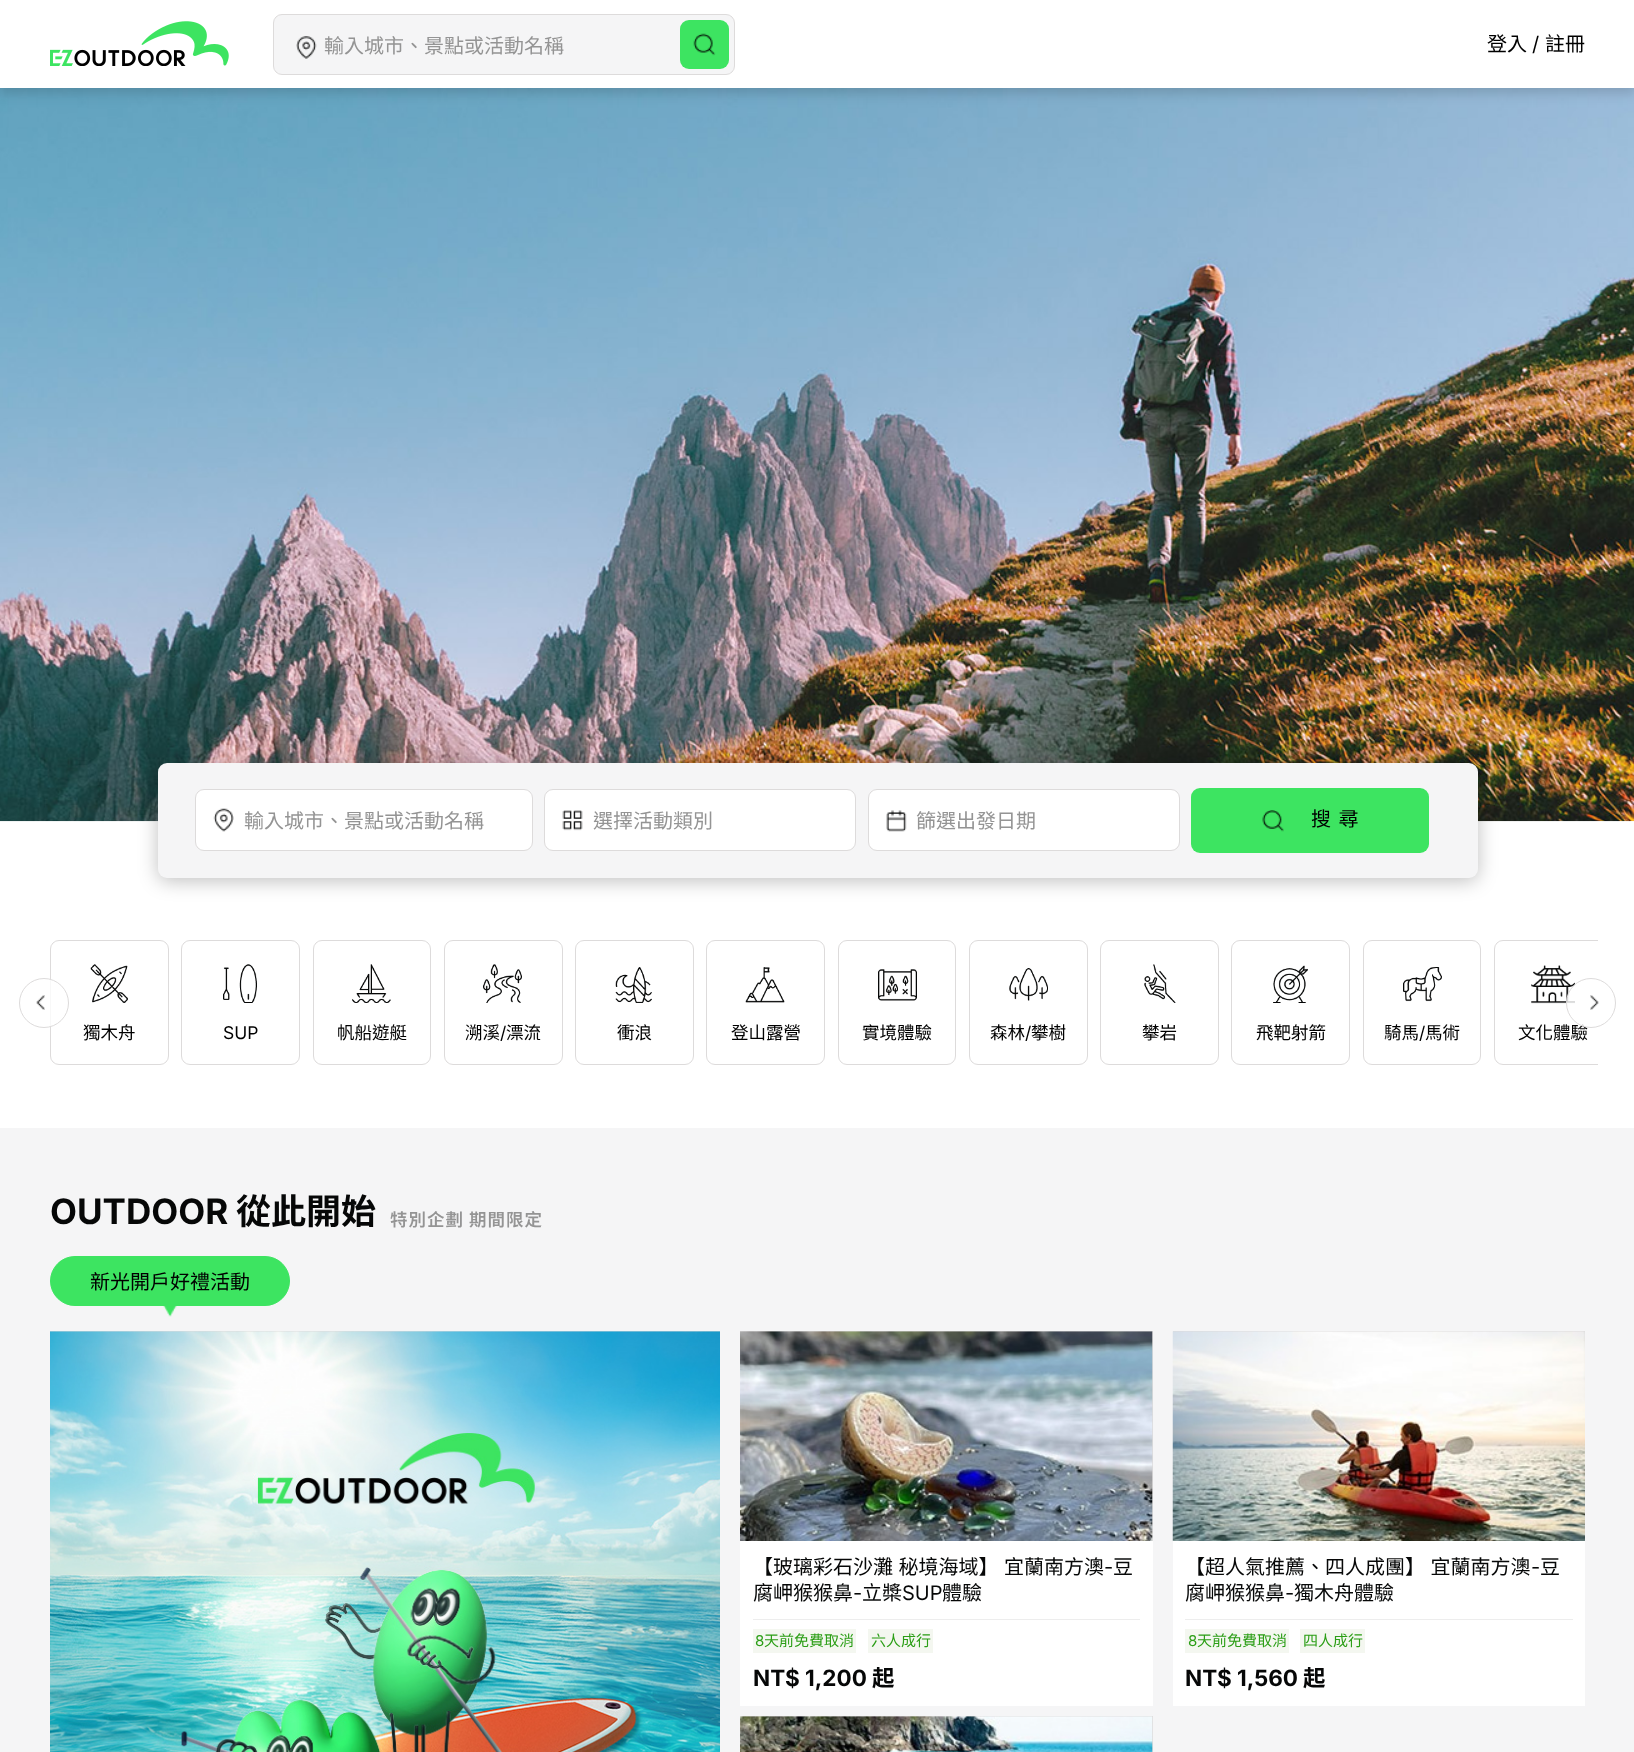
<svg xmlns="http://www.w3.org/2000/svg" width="1634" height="1752">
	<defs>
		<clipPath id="clip1"><rect x="38" y="928" width="1560" height="150" /></clipPath>
	</defs>
	<rect width="100%" height="100%" fill="#FFFFFF" />
	<image x="0" y="88" width="1634" height="734" href="assets/img4.png" />
	<rect x="0" y="5" width="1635" height="88" fill="#000000" fill-opacity="0.15" filter="blur(6px)" />
	<rect x="0" y="0" width="1634" height="88" fill="#FFFFFF" />
	<image x="50" y="21" width="179" height="45" href="assets/img1.png" />
	<rect x="273.5" y="14.5" width="461" height="60" rx="8.5" fill="#F5F5F6" stroke="#DDDBDB" />
	<image x="296" y="36" width="21" height="23" href="assets/img2.png" />
	<text x="324" y="53" font-family="Noto Sans TC" font-size="20" fill="#949494">輸入城市、景點或活動名稱</text>
	<rect x="680" y="20" width="49" height="49" rx="9" fill="#3DE461" />
	<image x="693" y="33" width="23" height="23" href="assets/img3.png" />
	<text x="1487" y="51" font-family="Noto Sans TC" font-size="20" fill="#000000">登入</text>
	<text x="1532" y="51" font-family="Inter" font-size="20" fill="#000000">/</text>
	<text x="1545" y="51" font-family="Noto Sans TC" font-size="20" fill="#000000">註冊</text>
	<rect x="158" y="766" width="1320" height="115" rx="9" fill="#000000" fill-opacity="0.25" filter="blur(9.5px)" />
	<rect x="158" y="763" width="1320" height="115" rx="9" fill="#F5F5F6" />
	<rect x="195.5" y="789.5" width="337" height="61" rx="8.5" fill="#FFFFFF" stroke="#DDDBDB" />
	<image x="213" y="808" width="21" height="24" href="assets/img5.png" />
	<text x="244" y="828" font-family="Noto Sans TC" font-size="20" fill="#949494">輸入城市、景點或活動名稱</text>
	<rect x="544.5" y="789.5" width="311" height="61" rx="8.5" fill="#FFFFFF" stroke="#DDDBDB" />
	<image x="562" y="810" width="21" height="21" href="assets/img6.png" />
	<text x="593" y="828" font-family="Noto Sans TC" font-size="20" fill="#949494">選擇活動類別</text>
	<rect x="868.5" y="789.5" width="311" height="61" rx="8.5" fill="#FFFFFF" stroke="#DDDBDB" />
	<image x="886" y="810" width="21" height="22" href="assets/img7.png" />
	<text x="916" y="828" font-family="Noto Sans TC" font-size="20" fill="#949494">篩選出發日期</text>
	<rect x="1191" y="788" width="238" height="65" rx="9" fill="#3DE461" />
	<image x="1262" y="810" width="22" height="22" href="assets/img8.png" />
	<text x="1311" y="826" word-spacing="1" font-family="Noto Sans TC" font-size="20" letter-spacing="1" fill="#000000">搜 尋</text>
	<rect x="50.5" y="940.5" width="118" height="124" rx="8.5" fill="none" stroke="#DDDBDB" />
	<circle cx="44" cy="1003" r="24.5" fill="#FFFFFF" fill-opacity="0.8" stroke="#DDDBDB" />
	<image x="36" y="995" width="9" height="15" href="assets/img9.png" />
	<g clip-path="url(#clip1)">
		<rect x="1494.5" y="940.5" width="118" height="124" rx="8.5" fill="none" stroke="#DDDBDB" />
	</g>
	<image x="1531" y="965" width="44" height="39" href="assets/img22.png" />
	<text x="1518" y="1039" font-family="Noto Sans TC" font-size="17.5" fill="#000000">文化體驗</text>
	<circle cx="1591" cy="1003" r="24.5" fill="#FFFFFF" fill-opacity="0.8" stroke="#DDDBDB" />
	<image x="1590" y="995" width="9" height="15" href="assets/img10.png" />
	<image x="90" y="964" width="38" height="39" href="assets/img11.png" />
	<text x="83" y="1039" font-family="Noto Sans TC" font-size="17.5" fill="#000000">獨木舟</text>
	<rect x="181.5" y="940.5" width="118" height="124" rx="8.5" fill="none" stroke="#DDDBDB" />
	<image x="223" y="964" width="34" height="39" href="assets/img12.png" />
	<text x="223" y="1039" font-family="Inter" font-size="17.5" fill="#000000">SUP</text>
	<rect x="313.5" y="940.5" width="117" height="124" rx="8.5" fill="none" stroke="#DDDBDB" />
	<image x="352" y="964" width="39" height="39" href="assets/img13.png" />
	<text x="337" y="1039" font-family="Noto Sans TC" font-size="17.5" fill="#000000">帆船遊艇</text>
	<rect x="444.5" y="940.5" width="118" height="124" rx="8.5" fill="none" stroke="#DDDBDB" />
	<image x="483" y="964" width="39" height="39" href="assets/img14.png" />
	<text x="465" y="1039" font-family="Noto Sans TC" font-size="17.5" fill="#000000">溯溪</text>
	<text x="500" y="1039" font-family="Inter" font-size="17.5" fill="#000000">/</text>
	<text x="506" y="1039" font-family="Noto Sans TC" font-size="17.5" fill="#000000">漂流</text>
	<rect x="575.5" y="940.5" width="118" height="124" rx="8.5" fill="none" stroke="#DDDBDB" />
	<image x="615" y="967" width="37" height="36" href="assets/img15.png" />
	<text x="617" y="1039" font-family="Noto Sans TC" font-size="17.5" fill="#000000">衝浪</text>
	<rect x="706.5" y="940.5" width="118" height="124" rx="8.5" fill="none" stroke="#DDDBDB" />
	<image x="745" y="967" width="40" height="36" href="assets/img16.png" />
	<text x="731" y="1039" font-family="Noto Sans TC" font-size="17.5" fill="#000000">登山露營</text>
	<rect x="838.5" y="940.5" width="117" height="124" rx="8.5" fill="none" stroke="#DDDBDB" />
	<image x="878" y="969" width="39" height="32" href="assets/img17.png" />
	<text x="862" y="1039" font-family="Noto Sans TC" font-size="17.5" fill="#000000">實境體驗</text>
	<rect x="969.5" y="940.5" width="118" height="124" rx="8.5" fill="none" stroke="#DDDBDB" />
	<image x="1009" y="968" width="39" height="33" href="assets/img18.png" />
	<text x="990" y="1039" font-family="Noto Sans TC" font-size="17.5" fill="#000000">森林</text>
	<text x="1025" y="1039" font-family="Inter" font-size="17.5" fill="#000000">/</text>
	<text x="1031" y="1039" font-family="Noto Sans TC" font-size="17.5" fill="#000000">攀樹</text>
	<rect x="1100.5" y="940.5" width="118" height="124" rx="8.5" fill="none" stroke="#DDDBDB" />
	<image x="1144" y="964" width="32" height="39" href="assets/img19.png" />
	<text x="1142" y="1039" font-family="Noto Sans TC" font-size="17.5" fill="#000000">攀岩</text>
	<rect x="1231.5" y="940.5" width="118" height="124" rx="8.5" fill="none" stroke="#DDDBDB" />
	<image x="1273" y="965" width="35" height="38" href="assets/img20.png" />
	<text x="1256" y="1039" font-family="Noto Sans TC" font-size="17.5" fill="#000000">飛靶射箭</text>
	<rect x="1363.5" y="940.5" width="117" height="124" rx="8.5" fill="none" stroke="#DDDBDB" />
	<image x="1403" y="967" width="39" height="35" href="assets/img21.png" />
	<text x="1384" y="1039" font-family="Noto Sans TC" font-size="17.5" fill="#000000">騎馬</text>
	<text x="1419" y="1039" font-family="Inter" font-size="17.5" fill="#000000">/</text>
	<text x="1425" y="1039" font-family="Noto Sans TC" font-size="17.5" fill="#000000">馬術</text>
	<rect x="0" y="1128" width="1634" height="624" fill="#F5F5F6" />
	<text x="50" y="1224" font-family="Inter" font-size="35" font-weight="700" fill="#060707">OUTDOOR</text>
	<text x="236" y="1224" font-family="Noto Sans TC" font-size="35" font-weight="700" fill="#060707">從此開始</text>
	<text x="390" y="1226" font-family="Noto Sans TC" font-size="17.5" font-weight="600" letter-spacing="1" fill="#949494">特別企劃 期間限定</text>
	<rect x="50.5" y="1256.5" width="239" height="49" rx="24.5" fill="#3DE461" stroke="#3DE461" />
	<text x="90" y="1289" font-family="Noto Sans TC" font-size="20" fill="#000000">新光開戶好禮活動</text>
	<image x="163" y="1306" width="14" height="11" href="assets/img23.png" />
	<rect x="50" y="1331" width="670" height="1" fill="#DDDBDB" />
	<image x="50" y="1331" width="670" height="421" href="assets/img24.png" />
	<rect x="740" y="1331" width="413" height="210" fill="#DDDBDB" />
	<image x="740" y="1331" width="413" height="210" href="assets/img25.png" />
	<rect x="740" y="1541" width="413" height="165" fill="#FFFFFF" />
	<text x="753" y="1574" word-spacing="1" font-family="Noto Sans TC" font-size="20" fill="#060707">【玻璃彩石沙灘 秘境海域】 宜蘭南方澳</text>
	<text x="1104" y="1574" font-family="Inter" font-size="20" fill="#060707">-</text>
	<g font-family="Noto Sans TC" font-size="20" fill="#060707">
		<text x="1113" y="1574">豆</text>
		<text x="753" y="1600">腐岬猴猴鼻</text>
	</g>
	<text x="853" y="1600" font-family="Inter" font-size="20" fill="#060707">-</text>
	<text x="862" y="1600" font-family="Noto Sans TC" font-size="20" fill="#060707">立槳</text>
	<text x="902" y="1600" font-family="Inter" font-size="20" fill="#060707">SUP</text>
	<text x="942" y="1600" font-family="Noto Sans TC" font-size="20" fill="#060707">體驗</text>
	<rect x="753" y="1619" width="387" height="1" fill="#EDEDED" />
	<rect x="753" y="1629" width="103" height="24" fill="#F4F7F0" />
	<text x="755" y="1646" font-family="Inter" font-size="15" fill="#2B9E16">8</text>
	<text x="764" y="1646" font-family="Noto Sans TC" font-size="15" fill="#2B9E16">天前免費取消</text>
	<rect x="868" y="1629" width="65" height="24" fill="#F4F7F0" />
	<text x="871" y="1646" font-family="Noto Sans TC" font-size="15" fill="#2B9E16">六人成行</text>
	<text x="753" y="1686" font-family="Inter" font-size="22.5" font-weight="700" fill="#060707">NT$ 1,200</text>
	<text x="872" y="1686" font-family="Noto Sans TC" font-size="22.5" font-weight="700" fill="#060707">起</text>
	<rect x="1173" y="1331" width="412" height="1" fill="#DDDBDB" />
	<image x="1172" y="1331" width="413" height="210" href="assets/img26.png" />
	<rect x="1173" y="1541" width="412" height="165" fill="#FFFFFF" />
	<text x="1185" y="1574" word-spacing="1" font-family="Noto Sans TC" font-size="20" fill="#060707">【超人氣推薦、四人成團】 宜蘭南方澳</text>
	<text x="1531" y="1574" font-family="Inter" font-size="20" fill="#060707">-</text>
	<g font-family="Noto Sans TC" font-size="20" fill="#060707">
		<text x="1540" y="1574">豆</text>
		<text x="1185" y="1600">腐岬猴猴鼻</text>
	</g>
	<text x="1285" y="1600" font-family="Inter" font-size="20" fill="#060707">-</text>
	<text x="1294" y="1600" font-family="Noto Sans TC" font-size="20" fill="#060707">獨木舟體驗</text>
	<rect x="1185" y="1619" width="388" height="1" fill="#EDEDED" />
	<rect x="1185" y="1629" width="104" height="24" fill="#F4F7F0" />
	<text x="1188" y="1646" font-family="Inter" font-size="15" fill="#2B9E16">8</text>
	<text x="1197" y="1646" font-family="Noto Sans TC" font-size="15" fill="#2B9E16">天前免費取消</text>
	<rect x="1300" y="1629" width="65" height="24" fill="#F4F7F0" />
	<text x="1303" y="1646" font-family="Noto Sans TC" font-size="15" fill="#2B9E16">四人成行</text>
	<text x="1185" y="1686" font-family="Inter" font-size="22.5" font-weight="700" fill="#060707">NT$ 1,560</text>
	<text x="1303" y="1686" font-family="Noto Sans TC" font-size="22.5" font-weight="700" fill="#060707">起</text>
	<rect x="740" y="1716" width="413" height="36" fill="#DDDBDB" />
	<image x="740" y="1716" width="413" height="36" href="assets/img27.png" />
</svg>
